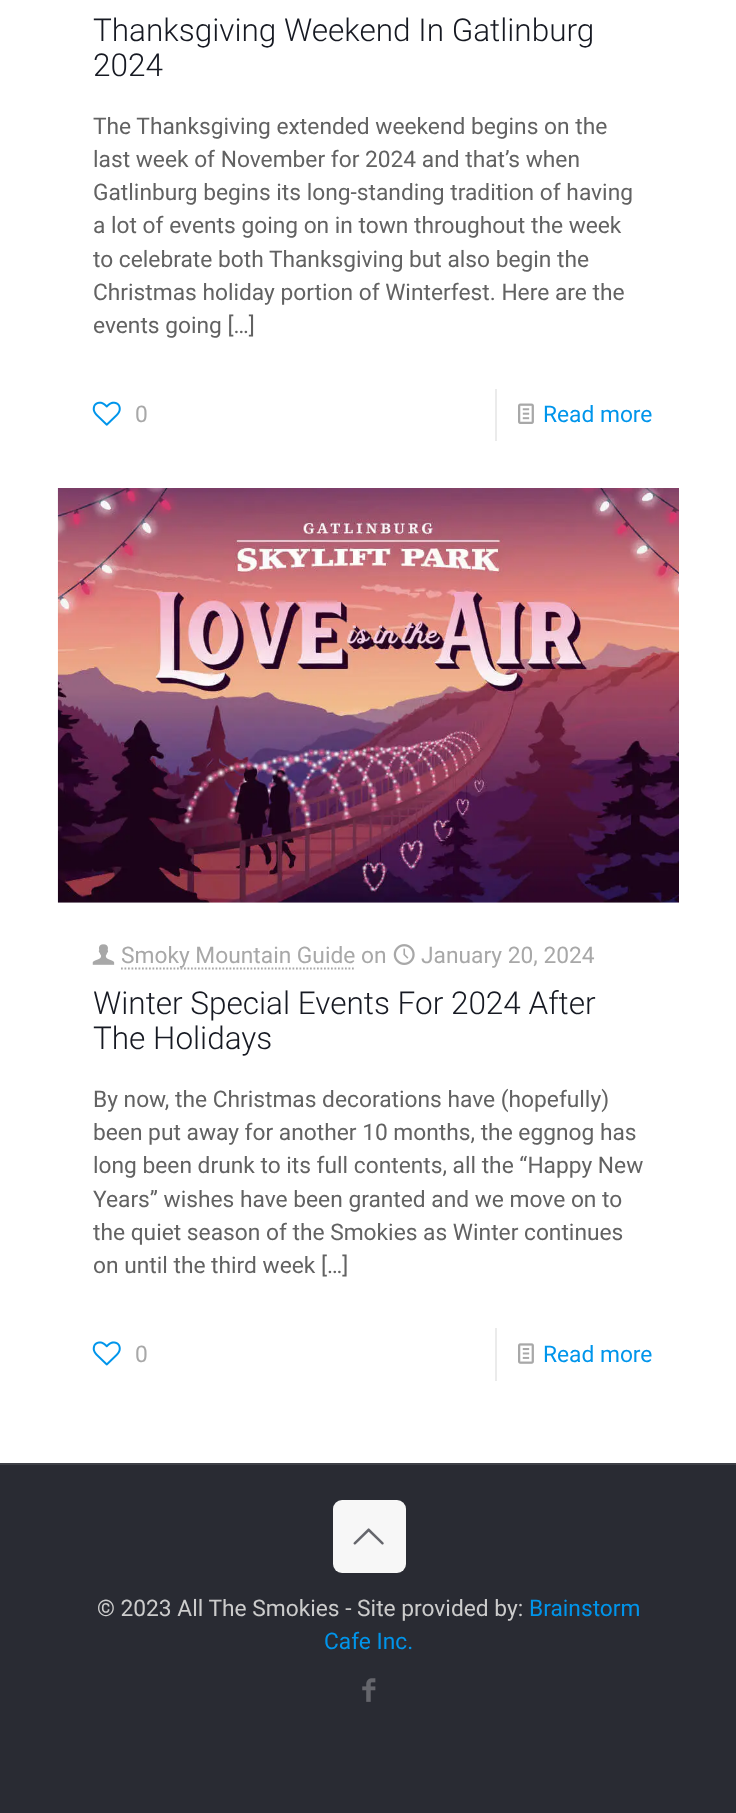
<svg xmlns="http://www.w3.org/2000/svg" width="736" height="1813">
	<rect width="100%" height="100%" fill="#FFFFFF" />
	<g font-family="Roboto" font-size="31.5" font-weight="300" fill="#161922">
		<text x="93" y="41">Thanksgiving Weekend In Gatlinburg</text>
		<text x="93" y="76">2024</text>
	</g>
	<g font-family="Roboto" font-size="22.75" fill="#626262">
		<text x="93" y="134">The Thanksgiving extended weekend begins on the</text>
		<text x="93" y="167">last week of November for 2024 and that’s when</text>
		<text x="93" y="200">Gatlinburg begins its long-standing tradition of having</text>
		<text x="93" y="233">a lot of events going on in town throughout the week</text>
		<text x="93" y="267">to celebrate both Thanksgiving but also begin the</text>
		<text x="93" y="300">Christmas holiday portion of Winterfest. Here are the</text>
		<text x="93" y="333">events going […]</text>
	</g>
	<image x="92" y="401" width="29" height="25" href="assets/img1.png" />
	<text x="135" y="422" font-family="Roboto" font-size="22.75" fill="#A8A8A8">0</text>
	<rect x="495" y="389" width="2" height="52" fill="#EBEBEB" />
	<image x="518" y="403" width="16" height="21" href="assets/img2.png" />
	<text x="543" y="422" font-family="Roboto" font-size="22.75" fill="#0095EB">Read more</text>
	<image x="57" y="488" width="622" height="415" href="assets/img3.png" />
	<image x="92" y="944" width="23" height="21" href="assets/img4.png" />
	<path d="M121 968.5H355" fill="none" stroke="#A8A8A8" stroke-width="1.8" stroke-dasharray="1.75 1.75" />
	<text x="121" y="963" font-family="Roboto" font-size="22.75" fill="#A8A8A8">Smoky Mountain Guide on</text>
	<image x="393" y="944" width="22" height="21" href="assets/img5.png" />
	<text x="421" y="963" font-family="Roboto" font-size="22.75" fill="#A8A8A8">January 20, 2024</text>
	<g font-family="Roboto" font-size="31.5" font-weight="300" fill="#161922">
		<text x="93" y="1014">Winter Special Events For 2024 After</text>
		<text x="93" y="1049">The Holidays</text>
	</g>
	<g font-family="Roboto" font-size="22.75" fill="#626262">
		<text x="93" y="1107">By now, the Christmas decorations have (hopefully)</text>
		<text x="93" y="1140">been put away for another 10 months, the eggnog has</text>
		<text x="93" y="1173">long been drunk to its full contents, all the “Happy New</text>
		<text x="93" y="1207">Years” wishes have been granted and we move on to</text>
		<text x="93" y="1240">the quiet season of the Smokies as Winter continues</text>
		<text x="93" y="1273">on until the third week […]</text>
	</g>
	<image x="92" y="1341" width="29" height="25" href="assets/img6.png" />
	<text x="135" y="1362" font-family="Roboto" font-size="22.75" fill="#A8A8A8">0</text>
	<rect x="495" y="1328" width="2" height="53" fill="#EBEBEB" />
	<image x="518" y="1343" width="16" height="21" href="assets/img7.png" />
	<text x="543" y="1362" font-family="Roboto" font-size="22.75" fill="#0095EB">Read more</text>
	<rect x="0" y="1465" width="736" height="348" fill="#292B33" />
	<rect x="0" y="1463" width="736" height="2" fill="#3E4047" />
	<rect x="333" y="1500" width="73" height="73" rx="9" fill="#F7F7F7" />
	<image x="353" y="1528" width="31" height="17" href="assets/img8.png" />
	<text x="97" y="1616" font-family="Roboto" font-size="22.75" fill="#CCCCCC">© 2023 All The Smokies - Site provided by:</text>
	<g font-family="Roboto" font-size="22.75" fill="#0095EB">
		<text x="529" y="1616">Brainstorm</text>
		<text x="324" y="1649">Cafe Inc.</text>
	</g>
	<image x="362" y="1678" width="14" height="24" href="assets/img9.png" />
</svg>
